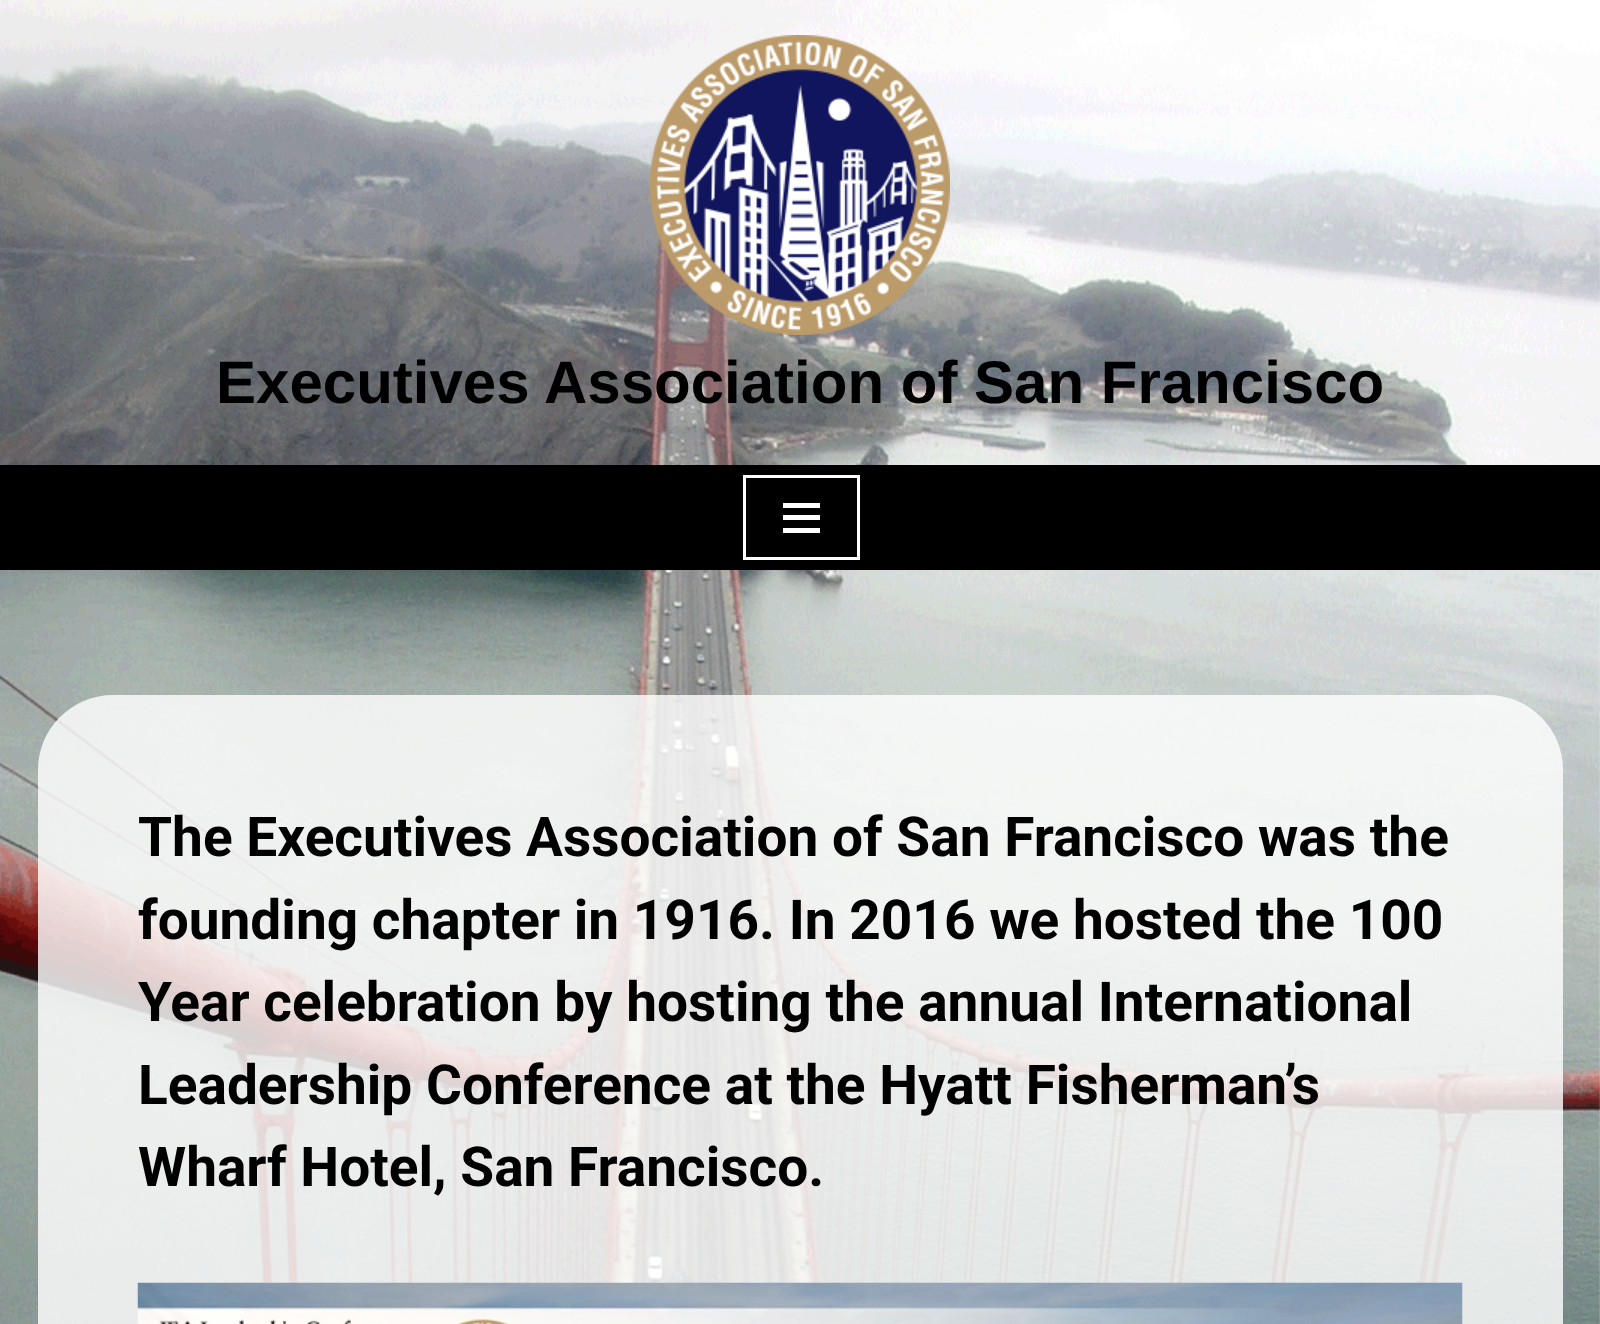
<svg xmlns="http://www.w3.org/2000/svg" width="1600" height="1324">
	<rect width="100%" height="100%" fill="#FFFFFF" />
	<image x="0" y="0" width="1600" height="1324" href="assets/img1.png" />
	<image x="650" y="35" width="300" height="300" href="assets/img2.png" />
	<text x="216" y="403" font-family="Liberation Sans" font-size="60" font-weight="700" fill="#000000">Executives Association of San Francisco</text>
	<rect x="0" y="465" width="1600" height="105" fill="#000000" />
	<rect x="744.5" y="476.5" width="114" height="82" fill="none" stroke="#FFFFFF" stroke-width="3" />
	<rect x="783" y="503" width="37" height="5" fill="#FFFFFF" />
	<rect x="783" y="515" width="37" height="5" fill="#FFFFFF" />
	<rect x="783" y="528" width="37" height="5" fill="#FFFFFF" />
	<rect x="38" y="695" width="1525" height="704" rx="75" fill="#FFFFFF" fill-opacity="0.81" />
	<g font-family="Roboto" font-size="55" font-weight="700" fill="#000000">
		<text x="138" y="856">The Executives Association of San Francisco was the</text>
		<text x="138" y="939">founding chapter in 1916. In 2016 we hosted the 100</text>
		<text x="138" y="1021">Year celebration by hosting the annual International</text>
		<text x="138" y="1104">Leadership Conference at the Hyatt Fisherman’s</text>
		<text x="138" y="1186">Wharf Hotel, San Francisco.</text>
	</g>
	<image x="137" y="1282" width="1326" height="42" href="assets/img3.png" />
	<image x="138" y="1283" width="1324" height="41" href="assets/img4.png" />
</svg>
